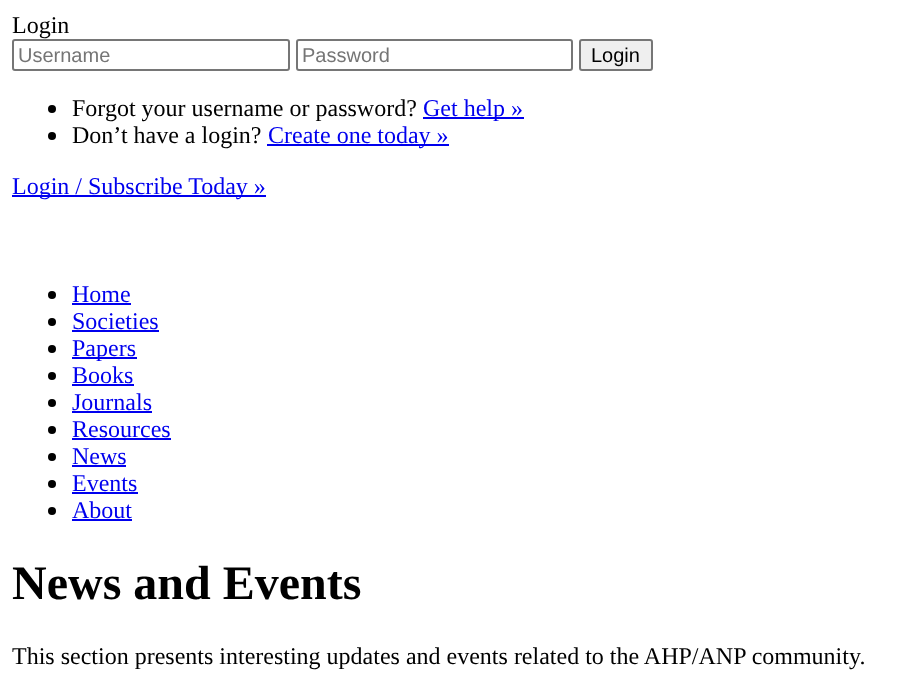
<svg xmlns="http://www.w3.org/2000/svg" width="912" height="696">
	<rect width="100%" height="100%" fill="#FFFFFF" />
	<text x="12" y="33" font-family="Liberation Serif" font-size="24" fill="#000000">Login</text>
	<rect x="13" y="40" width="276" height="30" rx="2" fill="none" stroke="#767676" stroke-width="2" />
	<text x="18" y="62" font-family="Liberation Sans" font-size="20" fill="#757575">Username</text>
	<rect x="297" y="40" width="275" height="30" rx="2" fill="none" stroke="#767676" stroke-width="2" />
	<text x="302" y="62" font-family="Liberation Sans" font-size="20" fill="#757575">Password</text>
	<rect x="580" y="40" width="72" height="30" rx="2" fill="#EFEFEF" stroke="#767676" stroke-width="2" />
	<text x="591" y="62" font-family="Liberation Sans" font-size="20" fill="#000000">Login</text>
	<circle cx="52" cy="109" r="4" fill="#000000" />
	<text x="72" y="116" font-family="Liberation Serif" font-size="24" fill="#000000">Forgot your username or password?</text>
	<rect x="423" y="117" width="101" height="2" fill="#0000EE" />
	<text x="423" y="116" font-family="Liberation Serif" font-size="24" fill="#0000EE">Get help »</text>
	<circle cx="52" cy="136" r="4" fill="#000000" />
	<text x="72" y="143" font-family="Liberation Serif" font-size="24" fill="#000000">Don’t have a login?</text>
	<rect x="267" y="144" width="182" height="2" fill="#0000EE" />
	<text x="268" y="143" font-family="Liberation Serif" font-size="24" fill="#0000EE">Create one today »</text>
	<rect x="12" y="195" width="254" height="2" fill="#0000EE" />
	<text x="12" y="194" font-family="Liberation Serif" font-size="24" fill="#0000EE">Login / Subscribe Today »</text>
	<circle cx="52" cy="295" r="4" fill="#000000" />
	<text x="72" y="302" font-family="Liberation Serif" font-size="24" fill="#0000EE">Home</text>
	<rect x="72" y="303" width="59" height="2" fill="#0000EE" />
	<circle cx="52" cy="322" r="4" fill="#000000" />
	<text x="72" y="329" font-family="Liberation Serif" font-size="24" fill="#0000EE">Societies</text>
	<rect x="72" y="330" width="87" height="2" fill="#0000EE" />
	<circle cx="52" cy="349" r="4" fill="#000000" />
	<rect x="72" y="357" width="65" height="2" fill="#0000EE" />
	<text x="72" y="356" font-family="Liberation Serif" font-size="24" fill="#0000EE">Papers</text>
	<circle cx="52" cy="376" r="4" fill="#000000" />
	<text x="72" y="383" font-family="Liberation Serif" font-size="24" fill="#0000EE">Books</text>
	<rect x="72" y="384" width="62" height="2" fill="#0000EE" />
	<circle cx="52" cy="403" r="4" fill="#000000" />
	<text x="72" y="410" font-family="Liberation Serif" font-size="24" fill="#0000EE">Journals</text>
	<rect x="72" y="411" width="80" height="2" fill="#0000EE" />
	<circle cx="52" cy="430" r="4" fill="#000000" />
	<text x="72" y="437" font-family="Liberation Serif" font-size="24" fill="#0000EE">Resources</text>
	<rect x="72" y="438" width="99" height="2" fill="#0000EE" />
	<circle cx="52" cy="457" r="4" fill="#000000" />
	<text x="72" y="464" font-family="Liberation Serif" font-size="24" fill="#0000EE">News</text>
	<rect x="72" y="465" width="54" height="2" fill="#0000EE" />
	<circle cx="52" cy="484" r="4" fill="#000000" />
	<text x="72" y="491" font-family="Liberation Serif" font-size="24" fill="#0000EE">Events</text>
	<rect x="72" y="492" width="66" height="2" fill="#0000EE" />
	<circle cx="52" cy="511" r="4" fill="#000000" />
	<text x="72" y="518" font-family="Liberation Serif" font-size="24" fill="#0000EE">About</text>
	<rect x="72" y="519" width="60" height="2" fill="#0000EE" />
	<text x="12" y="599" font-family="Liberation Serif" font-size="48" font-weight="700" fill="#000000">News and Events</text>
	<text x="12" y="664" font-family="Liberation Serif" font-size="24" fill="#000000">This section presents interesting updates and events related to the AHP/ANP community.</text>
</svg>
